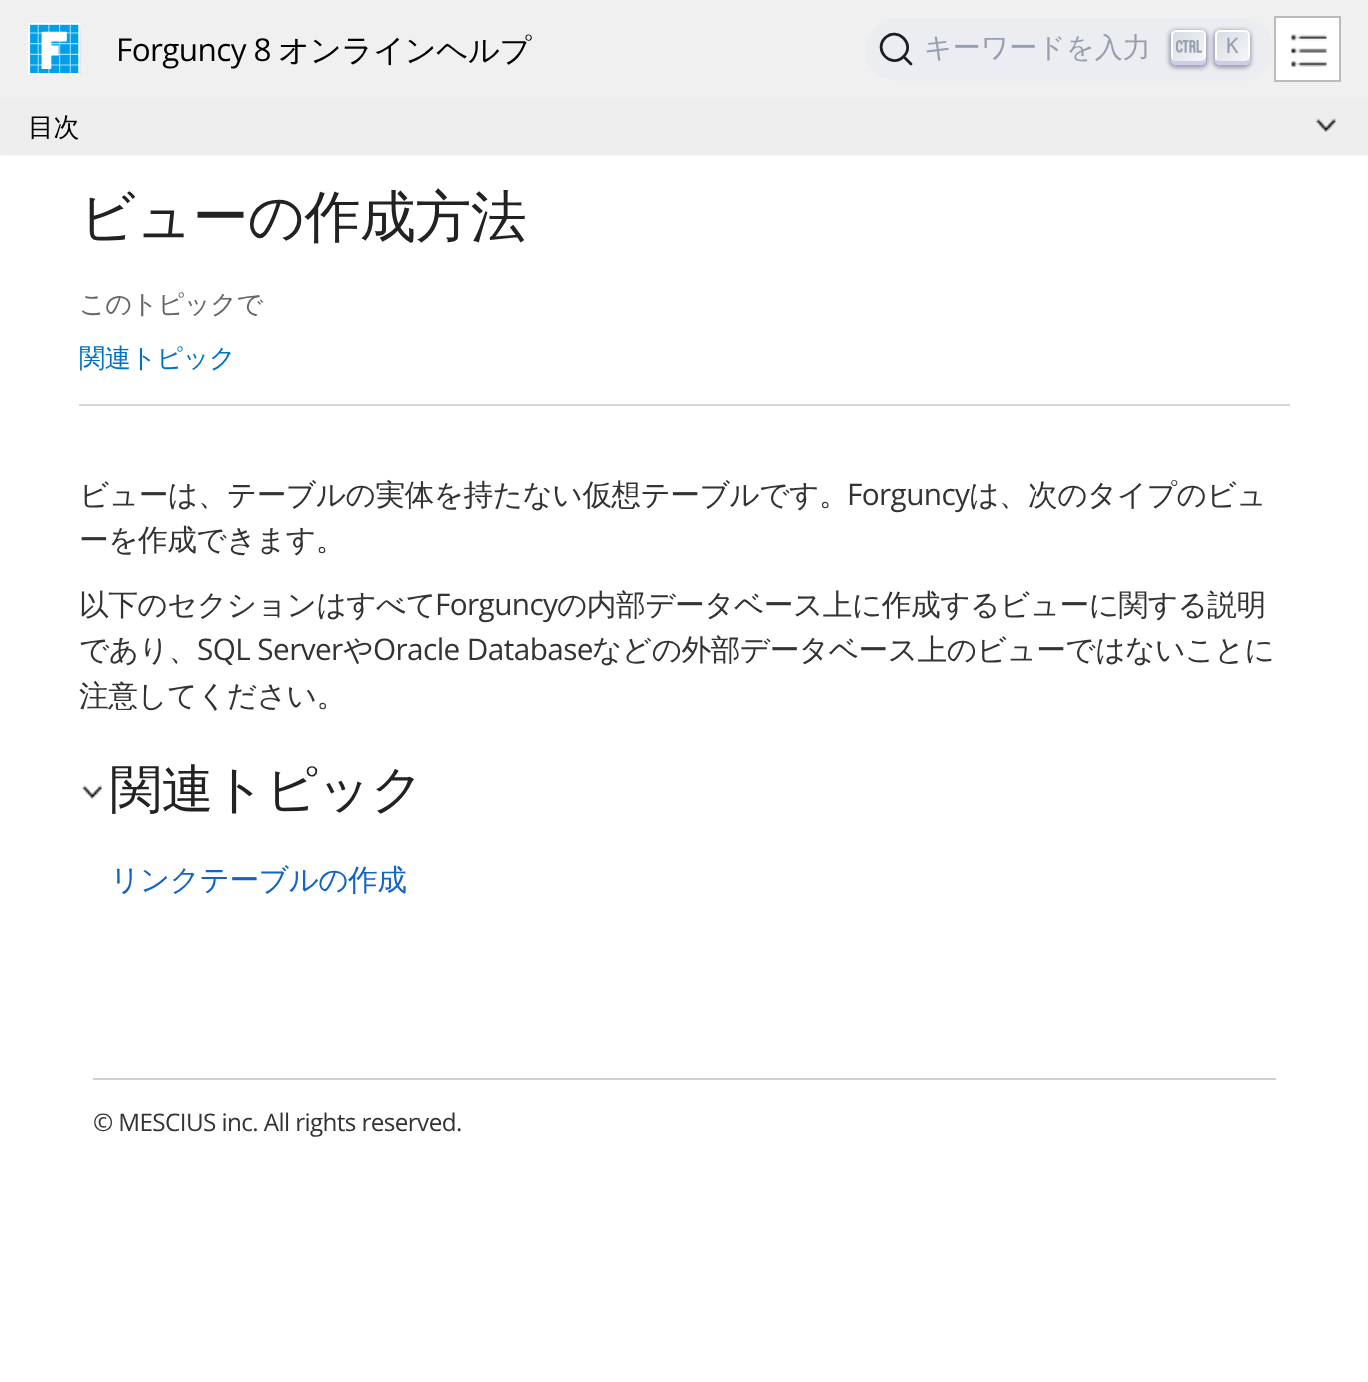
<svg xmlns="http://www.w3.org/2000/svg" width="1368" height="1382">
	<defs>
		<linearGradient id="g1" gradientUnits="userSpaceOnUse" x1="1171" y1="30" x2="1206" y2="65"><stop offset="0" stop-color="#D5DBE4" /><stop offset="1" stop-color="#F8F8F8" /></linearGradient>
		<linearGradient id="g2" gradientUnits="userSpaceOnUse" x1="1215" y1="30" x2="1250" y2="65"><stop offset="0" stop-color="#D5DBE4" /><stop offset="1" stop-color="#F8F8F8" /></linearGradient>
	</defs>
	<rect width="100%" height="100%" fill="#FFFFFF" />
	<rect x="0" y="98" width="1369" height="56" fill="#5F5F5F" fill-opacity="0.35" filter="blur(1px)" />
	<rect x="0" y="0" width="1368" height="98" fill="#F0F0F0" />
	<image x="28" y="23" width="53" height="52" href="assets/img1.png" />
	<text x="116" y="61" font-family="Open Sans" font-size="31.5" letter-spacing="-0.6" fill="#000000">Forguncy 8</text>
	<text x="278" y="61" font-family="WenQuanYi Zen Hei" font-size="31.5" font-weight="500" letter-spacing="-0.6" fill="#000000">オンラインヘルプ</text>
	<rect x="865" y="18" width="409" height="63" rx="31.5" fill="#EBEDF0" />
	<path d="M903.5 56.5L911 64L903.5 56.5C891.5 69 873 50.5 885 38C897.5 26 916 44.5 903.5 56.5Z" fill="none" stroke="#1C1E21" stroke-width="2.8" stroke-linecap="round" stroke-linejoin="round" />
	<text x="924" y="57" font-family="WenQuanYi Zen Hei" font-size="28" font-weight="500" fill="#969FAF">キーワードを入力</text>
	<rect x="1169" y="30" width="39" height="38" rx="7" fill="#1E235A" fill-opacity="0.4" filter="blur(2px)" />
	<rect x="1172" y="31" width="33" height="33" rx="4" fill="url(#g1)" stroke="#FFFFFF" stroke-width="2" />
	<path d="M1171 56C1171 64 1171.5 65 1180 65H1197C1205.5 65 1206 64 1206 56C1206 59 1203 61 1200 61H1176C1173 61 1171 59 1171 56Z" fill="#CDCDE6" />
	<image x="1176" y="40" width="26" height="13" href="assets/img2.png" />
	<rect x="1213" y="30" width="38" height="38" rx="7" fill="#1E235A" fill-opacity="0.4" filter="blur(2px)" />
	<rect x="1216" y="31" width="33" height="33" rx="4" fill="url(#g2)" stroke="#FFFFFF" stroke-width="2" />
	<path d="M1215 59C1215 65 1219 65 1224 65H1241C1249.5 65 1250 64 1250 56C1250 59 1247 61 1244 61H1220C1218 61 1216 60 1215 59Z" fill="#CDCDE6" />
	<text x="1226" y="53" font-family="DejaVu Sans Mono" font-size="21" fill="#969FAF">K</text>
	<rect x="1276" y="18" width="63" height="62" fill="#FFFFFF" />
	<image x="1290" y="34" width="37" height="33" href="assets/img3.png" />
	<rect x="1275" y="17" width="65" height="64" fill="none" stroke="#BBBBBB" stroke-width="2" />
	<rect x="0" y="98" width="1368" height="56" fill="#EEEEEE" />
	<text x="28" y="136" font-family="WenQuanYi Zen Hei" font-size="26" font-weight="500" letter-spacing="-0.6" fill="#000000">目次</text>
	<image x="1315" y="118" width="21" height="14" href="assets/img4.png" />
	<text x="79" y="236" font-family="WenQuanYi Zen Hei" font-size="56" font-weight="500" letter-spacing="-0.6" fill="#222222">ビューの作成方法</text>
	<rect x="79" y="404" width="1211" height="2" fill="#D6D6D6" />
	<text x="79" y="313" font-family="WenQuanYi Zen Hei" font-size="26.25" font-weight="500" letter-spacing="-0.6" fill="#666666">このトピックで</text>
	<text x="79" y="367" font-family="WenQuanYi Zen Hei" font-size="26.25" font-weight="500" letter-spacing="-0.6" fill="#0072C6">関連トピック</text>
	<text x="79" y="505" font-family="WenQuanYi Zen Hei" font-size="29.75" font-weight="500" letter-spacing="-0.6" fill="#333333">ビューは、テーブルの実体を持たない仮想テーブルです。</text>
	<text x="847" y="505" font-family="Open Sans" font-size="29.75" letter-spacing="-0.6" fill="#333333">Forguncy</text>
	<g font-family="WenQuanYi Zen Hei" font-size="29.75" font-weight="500" letter-spacing="-0.6" fill="#333333">
		<text x="969" y="505">は、次のタイプのビュ</text>
		<text x="79" y="550">ーを作成できます。</text>
		<text x="79" y="615">以下のセクションはすべて</text>
	</g>
	<text x="435" y="615" font-family="Open Sans" font-size="29.75" letter-spacing="-0.6" fill="#333333">Forguncy</text>
	<g font-family="WenQuanYi Zen Hei" font-size="29.75" font-weight="500" letter-spacing="-0.6" fill="#333333">
		<text x="557" y="615">の内部データベース上に作成するビューに関する説明</text>
		<text x="79" y="660">であり、</text>
	</g>
	<text x="197" y="660" font-family="Open Sans" font-size="29.75" letter-spacing="-0.6" fill="#333333">SQL Server</text>
	<text x="343" y="660" font-family="WenQuanYi Zen Hei" font-size="29.75" font-weight="500" letter-spacing="-0.6" fill="#333333">や</text>
	<text x="373" y="660" font-family="Open Sans" font-size="29.75" letter-spacing="-0.6" fill="#333333">Oracle Database</text>
	<g font-family="WenQuanYi Zen Hei" font-size="29.75" font-weight="500" letter-spacing="-0.6" fill="#333333">
		<text x="592" y="660">などの外部データベース上のビューではないことに</text>
		<text x="79" y="706">注意してください。</text>
	</g>
	<image x="82" y="785" width="20" height="14" href="assets/img5.png" />
	<text x="110" y="807" font-family="WenQuanYi Zen Hei" font-size="52" font-weight="500" letter-spacing="-0.6" fill="#222222">関連トピック</text>
	<text x="110" y="890" font-family="WenQuanYi Zen Hei" font-size="29.75" font-weight="500" letter-spacing="-0.6" fill="#1364C4">リンクテーブルの作成</text>
	<rect x="93" y="1078" width="1183" height="2" fill="#D0D0D0" />
	<text x="93" y="1131" font-family="Open Sans" font-size="24.25" letter-spacing="-0.6" fill="#333333">© MESCIUS inc. All rights reserved.</text>
</svg>
